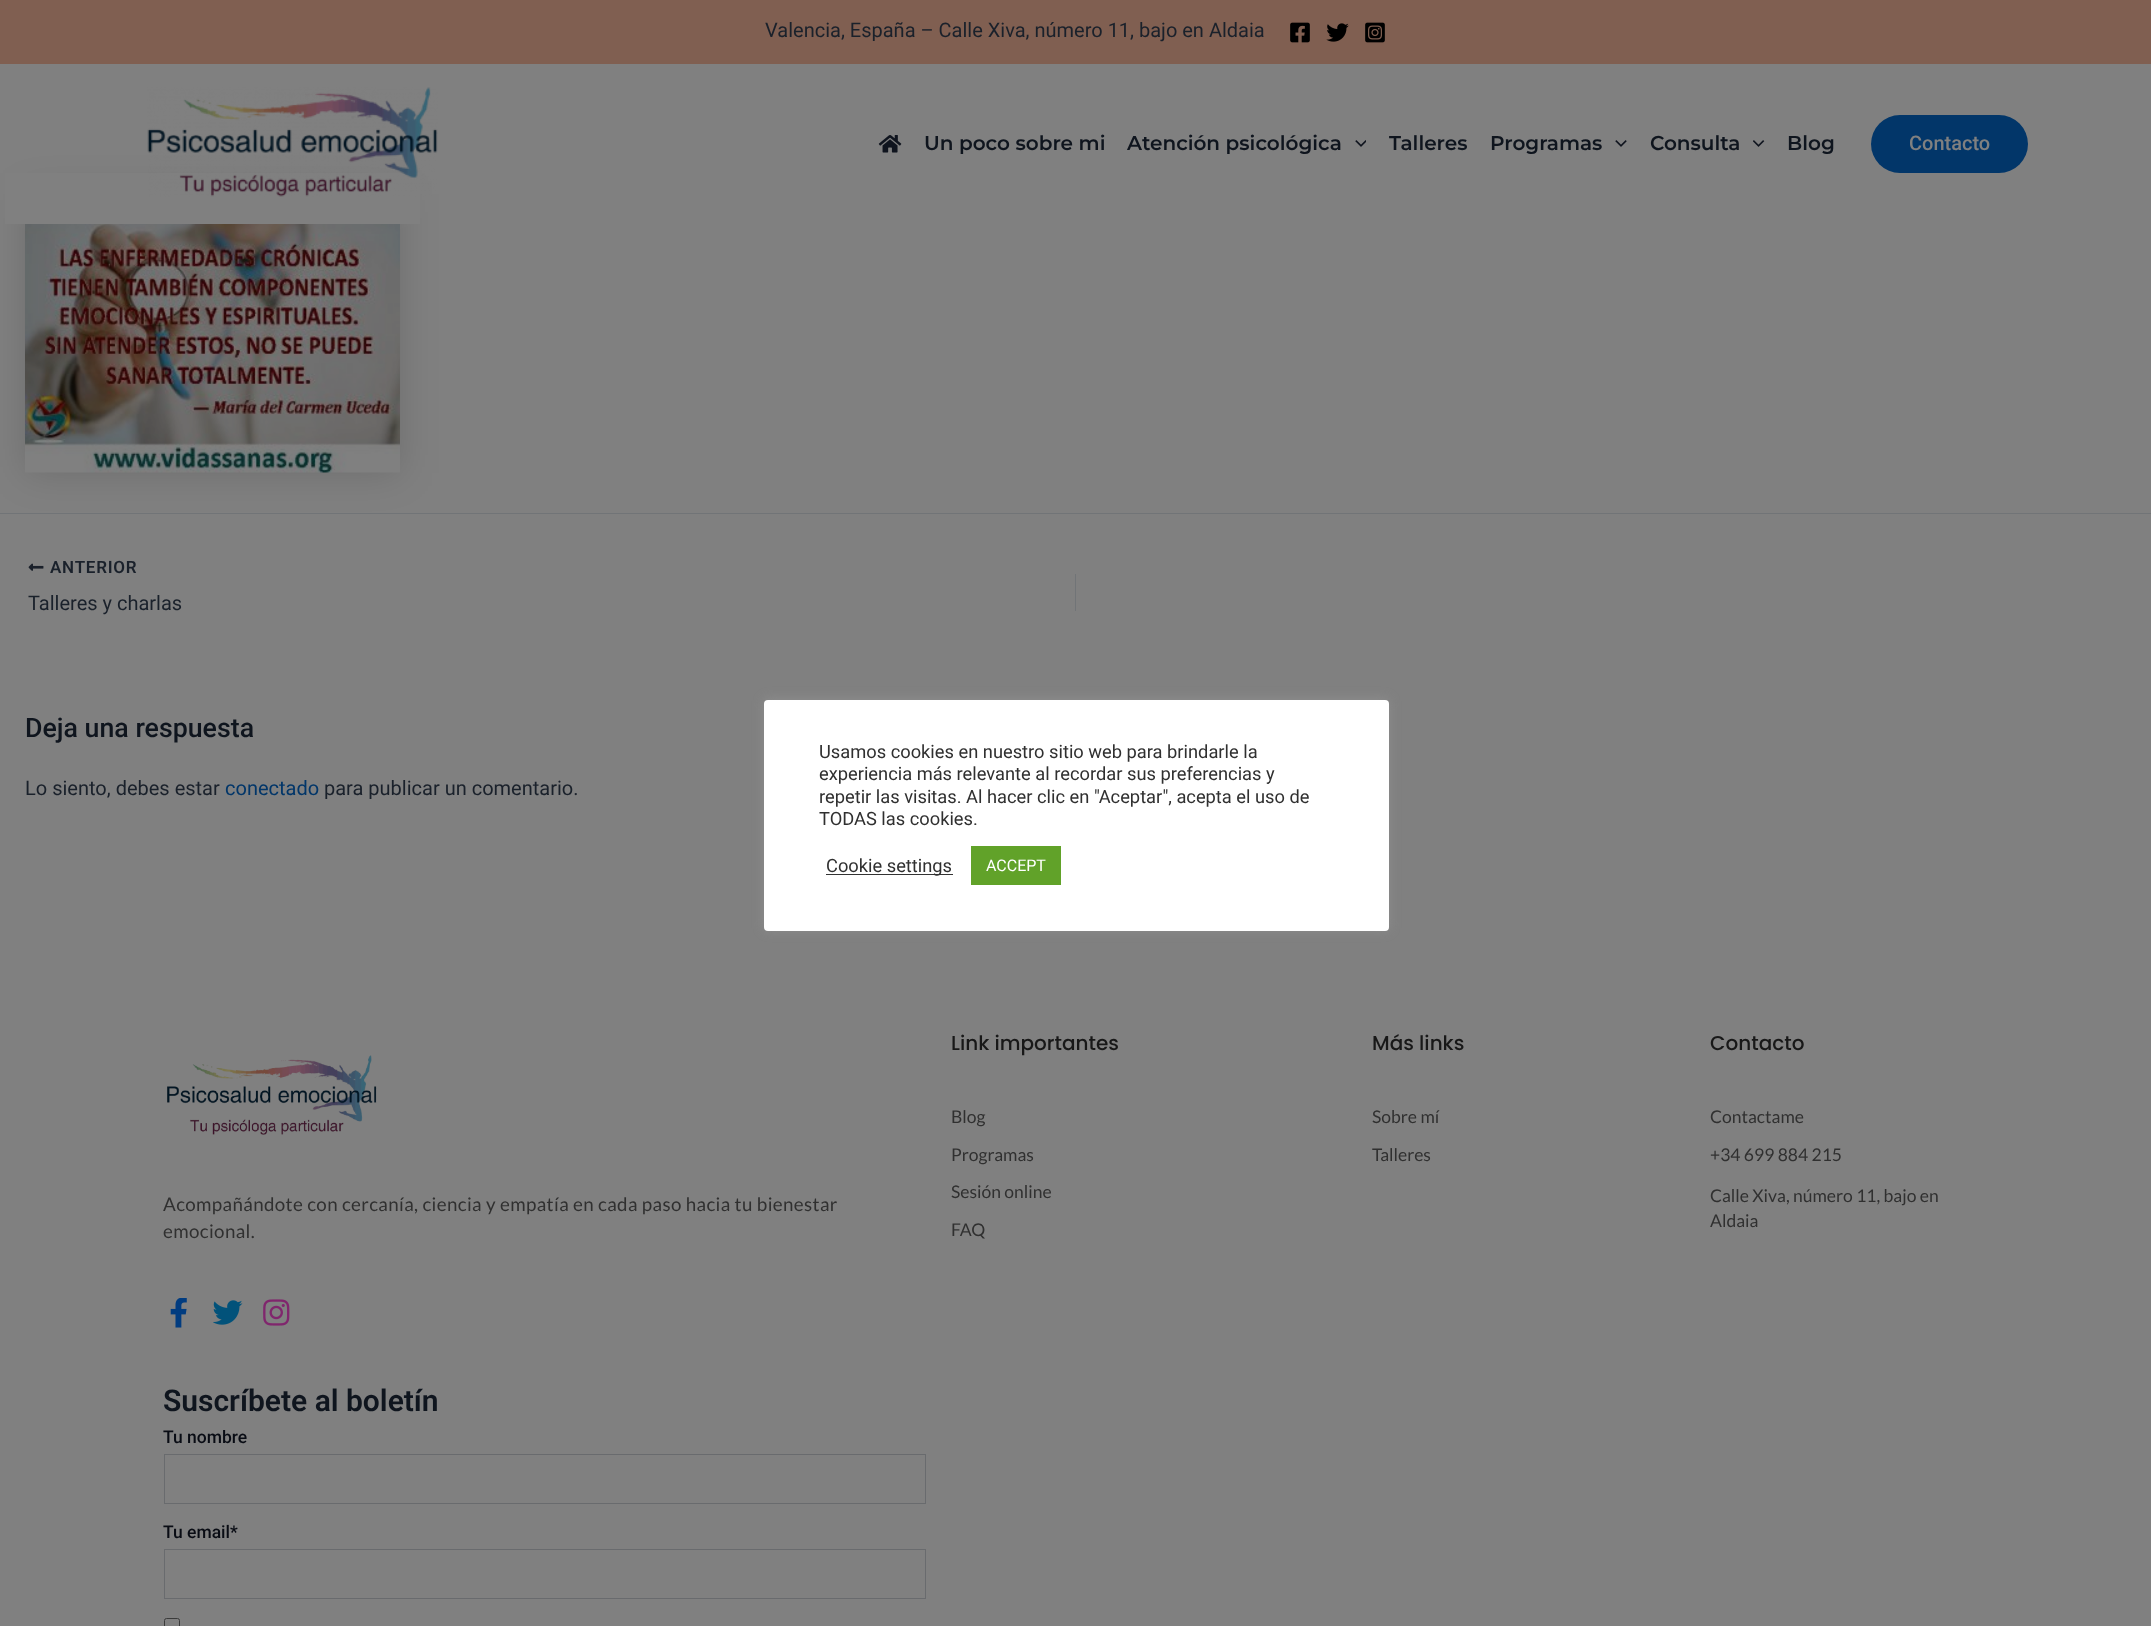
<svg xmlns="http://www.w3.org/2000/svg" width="2151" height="1626">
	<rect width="100%" height="100%" fill="#808080" />
	<rect x="0" y="0" width="2151" height="64" fill="#805F51" />
	<text x="765" y="37" font-family="Roboto" font-size="20" fill="#1A212B">Valencia, España – Calle Xiva, número 11, bajo en Aldaia</text>
	<image x="1290" y="22" width="20" height="21" href="assets/img1.png" />
	<image x="1326" y="23" width="23" height="19" href="assets/img2.png" />
	<image x="1365" y="22" width="20" height="21" href="assets/img3.png" />
	<rect x="25" y="194" width="375" height="279" fill="#000000" fill-opacity="0.15" filter="blur(19px)" />
	<rect x="5" y="173" width="415" height="51" fill="#808080" />
	<image x="147" y="87" width="291" height="110" href="assets/img4.png" />
	<image x="878" y="135" width="24" height="18" href="assets/img5.png" />
	<g font-family="Montserrat" font-size="20" font-weight="600" fill="#0F151E">
		<text x="924" y="150">Un poco sobre mi</text>
		<text x="1127" y="150">Atención psicológica</text>
	</g>
	<image x="1355" y="140" width="11" height="7" href="assets/img6.png" />
	<g font-family="Montserrat" font-size="20" font-weight="600" fill="#0F151E">
		<text x="1389" y="150">Talleres</text>
		<text x="1490" y="150">Programas</text>
	</g>
	<image x="1615" y="140" width="12" height="7" href="assets/img7.png" />
	<text x="1650" y="150" font-family="Montserrat" font-size="20" font-weight="600" fill="#0F151E">Consulta</text>
	<image x="1753" y="140" width="12" height="7" href="assets/img8.png" />
	<text x="1787" y="150" font-family="Montserrat" font-size="20" font-weight="600" fill="#0F151E">Blog</text>
	<rect x="1871" y="115" width="157" height="58" rx="29" fill="#023669" />
	<text x="1909" y="150" font-family="Roboto" font-size="20" font-weight="500" fill="#808080">Contacto</text>
	<image x="25" y="224" width="375" height="249" href="assets/img9.png" />
	<rect x="0" y="513" width="2151" height="1" fill="#717477" />
	<image x="28" y="563" width="16" height="8" href="assets/img10.png" />
	<text x="50" y="573" font-family="Roboto" font-size="17" font-weight="600" letter-spacing="0.75" fill="#1A212B">ANTERIOR</text>
	<text x="28" y="610" font-family="Roboto" font-size="20" fill="#1A212B">Talleres y charlas</text>
	<rect x="1075" y="574" width="1" height="37" fill="#717477" />
	<text x="25" y="737" font-family="Roboto" font-size="26.75" font-weight="500" fill="#0F151E">Deja una respuesta</text>
	<text x="25" y="795" font-family="Roboto" font-size="20" fill="#1A212B">Lo siento, debes estar</text>
	<text x="225" y="795" font-family="Roboto" font-size="20" fill="#023669">conectado</text>
	<text x="324" y="795" font-family="Roboto" font-size="20" fill="#1A212B">para publicar un comentario.</text>
	<text x="951" y="1050" font-family="Poppins" font-size="20" font-weight="500" fill="#181818">Link importantes</text>
	<g font-family="Lato" font-size="17.5" fill="#303030">
		<text x="951" y="1123">Blog</text>
		<text x="951" y="1161">Programas</text>
		<text x="951" y="1198">Sesión online</text>
		<text x="951" y="1236">FAQ</text>
	</g>
	<text x="1372" y="1050" font-family="Poppins" font-size="20" font-weight="500" fill="#181818">Más links</text>
	<g font-family="Lato" font-size="17.5" fill="#303030">
		<text x="1372" y="1123">Sobre mí</text>
		<text x="1372" y="1161">Talleres</text>
	</g>
	<text x="1710" y="1050" font-family="Poppins" font-size="20" font-weight="500" fill="#181818">Contacto</text>
	<g font-family="Lato" font-size="17.5" fill="#303030">
		<text x="1710" y="1123">Contactame</text>
		<text x="1710" y="1161">+34 699 884 215</text>
		<text x="1710" y="1202">Calle Xiva, número 11, bajo en</text>
		<text x="1710" y="1227">Aldaia</text>
	</g>
	<image x="167" y="1055" width="210" height="80" href="assets/img11.png" />
	<g font-family="Lato" font-size="18.75" letter-spacing="0.38" fill="#303030">
		<text x="163" y="1211">Acompañándote con cercanía, ciencia y empatía en cada paso hacia tu bienestar</text>
		<text x="163" y="1238">emocional.</text>
	</g>
	<image x="170" y="1298" width="17" height="30" href="assets/img12.png" />
	<image x="213" y="1300" width="30" height="25" href="assets/img13.png" />
	<image x="263" y="1299" width="27" height="27" href="assets/img14.png" />
	<text x="163" y="1411" font-family="Roboto" font-size="30" font-weight="600" fill="#0F151E">Suscríbete al boletín</text>
	<text x="163" y="1443" font-family="Roboto" font-size="17.5" font-weight="500" fill="#090C14">Tu nombre</text>
	<rect x="164.5" y="1454.5" width="761" height="49" fill="none" stroke="#696B6E" />
	<text x="163" y="1538" font-family="Roboto" font-size="17.5" font-weight="500" fill="#090C14">Tu email*</text>
	<rect x="164.5" y="1549.5" width="761" height="49" fill="none" stroke="#696B6E" />
	<rect x="164.5" y="1618.5" width="15" height="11" rx="2" fill="none" stroke="#3B3B3B" />
	<rect x="764" y="699" width="625" height="231" rx="4" fill="#ACABAB" fill-opacity="0.3" filter="blur(6px)" />
	<rect x="764" y="700" width="625" height="231" rx="4" fill="#FFFFFF" />
	<g font-family="Roboto" font-size="18.3" fill="#303030">
		<text x="819" y="758">Usamos cookies en nuestro sitio web para brindarle la</text>
		<text x="819" y="780">experiencia más relevante al recordar sus preferencias y</text>
		<text x="819" y="803">repetir las visitas. Al hacer clic en "Aceptar", acepta el uso de</text>
		<text x="819" y="825">TODAS las cookies.</text>
	</g>
	<rect x="826" y="874" width="127" height="1" fill="#333333" />
	<text x="826" y="872" font-family="Roboto" font-size="18.3" fill="#303030">Cookie settings</text>
	<rect x="971" y="846" width="90" height="39" fill="#61A229" />
	<text x="986" y="871" font-family="Roboto" font-size="16" fill="#FFFFFF">ACCEPT</text>
</svg>
